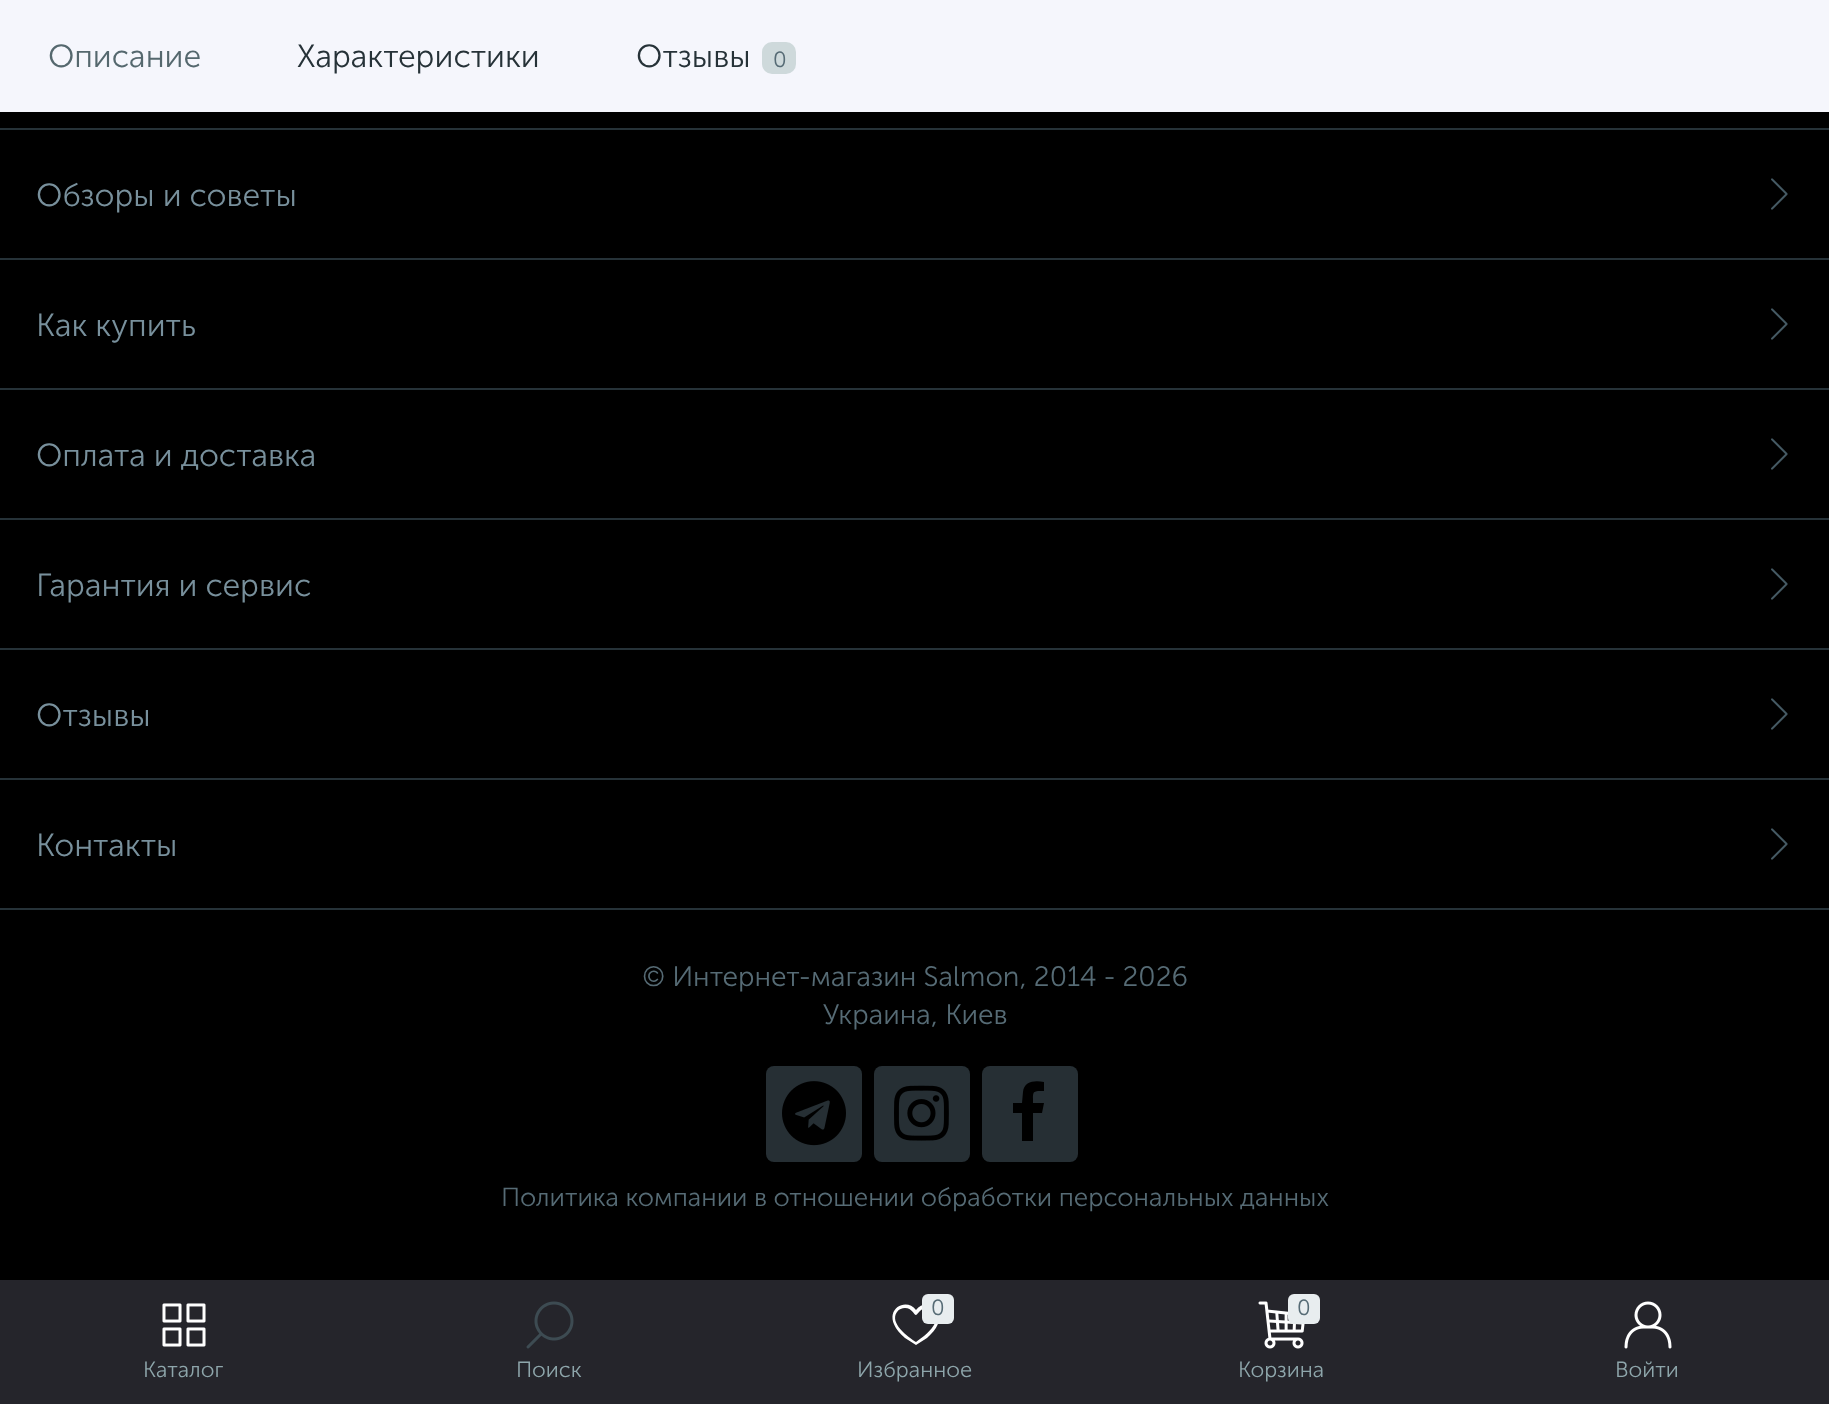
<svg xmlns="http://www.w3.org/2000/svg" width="1829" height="1404">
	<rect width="100%" height="100%" fill="#000000" />
	<rect x="0" y="0" width="1829" height="112" fill="#F5F6FC" />
	<text x="48" y="67" font-family="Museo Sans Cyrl" font-size="32" font-weight="300" fill="#55686E">Описание</text>
	<g font-family="Museo Sans Cyrl" font-size="32" font-weight="300" fill="#263238">
		<text x="297" y="67">Характеристики</text>
		<text x="636" y="67">Отзывы</text>
	</g>
	<rect x="762" y="42" width="34" height="32" rx="10" fill="#CED9DB" />
	<text x="773" y="67" font-family="Museo Sans Cyrl" font-size="22" font-weight="300" fill="#566B75">0</text>
	<rect x="0" y="128" width="1829" height="2" fill="#263238" />
	<rect x="0" y="258" width="1829" height="2" fill="#263238" />
	<text x="36" y="206" font-family="Museo Sans Cyrl" font-size="32" font-weight="300" fill="#78909C">Обзоры и советы</text>
	<image x="1771" y="178" width="17" height="32" href="assets/img1.png" />
	<rect x="0" y="388" width="1829" height="2" fill="#263238" />
	<text x="36" y="336" font-family="Museo Sans Cyrl" font-size="32" font-weight="300" fill="#78909C">Как купить</text>
	<image x="1771" y="308" width="17" height="32" href="assets/img1.png" />
	<rect x="0" y="518" width="1829" height="2" fill="#263238" />
	<text x="36" y="466" font-family="Museo Sans Cyrl" font-size="32" font-weight="300" fill="#78909C">Оплата и доставка</text>
	<image x="1771" y="438" width="17" height="32" href="assets/img1.png" />
	<rect x="0" y="648" width="1829" height="2" fill="#263238" />
	<text x="36" y="596" font-family="Museo Sans Cyrl" font-size="32" font-weight="300" fill="#78909C">Гарантия и сервис</text>
	<image x="1771" y="568" width="17" height="32" href="assets/img1.png" />
	<rect x="0" y="778" width="1829" height="2" fill="#263238" />
	<text x="36" y="726" font-family="Museo Sans Cyrl" font-size="32" font-weight="300" fill="#78909C">Отзывы</text>
	<image x="1771" y="698" width="17" height="32" href="assets/img1.png" />
	<rect x="0" y="908" width="1829" height="2" fill="#263238" />
	<text x="36" y="856" font-family="Museo Sans Cyrl" font-size="32" font-weight="300" fill="#78909C">Контакты</text>
	<image x="1771" y="828" width="17" height="32" href="assets/img1.png" />
	<g font-family="Museo Sans Cyrl" font-size="28" font-weight="300" fill="#566B75">
		<text x="642" y="986">© Интернет-магазин Salmon, 2014 - 2026</text>
		<text x="823" y="1024">Украина, Киев</text>
	</g>
	<rect x="766" y="1066" width="96" height="96" rx="8" fill="#262F34" />
	<image x="782" y="1081" width="64" height="65" href="assets/img2.png" />
	<rect x="874" y="1066" width="96" height="96" rx="8" fill="#262F34" />
	<image x="894" y="1085" width="55" height="56" href="assets/img3.png" />
	<rect x="982" y="1066" width="96" height="96" rx="8" fill="#262F34" />
	<path d="M1044 1082V1091C1032 1091 1033 1091 1033 1103H1044L1042 1113H1033V1141H1022V1113H1013V1103H1022L1023 1092C1024 1081 1035 1080 1044 1082Z" fill="#000000" />
	<text x="501" y="1206" font-family="Museo Sans Cyrl" font-size="26" font-weight="300" fill="#566B75">Политика компании в отношении обработки персональных данных</text>
	<rect x="0" y="1280" width="1829" height="124" fill="#25252B" />
	<image x="162" y="1303" width="44" height="44" href="assets/img4.png" />
	<text x="143" y="1377" font-family="Museo Sans Cyrl" font-size="22" font-weight="300" fill="#8EA6AB">Каталог</text>
	<image x="526" y="1301" width="48" height="48" href="assets/img5.png" />
	<text x="516" y="1377" font-family="Museo Sans Cyrl" font-size="22" font-weight="300" fill="#8EA6AB">Поиск</text>
	<path d="M916 1345L905 1338C876 1313 905 1295 916 1310C927 1295 956 1313 927 1338ZM905 1308C902 1308 899 1309 897 1312C889 1323 908 1337 916 1342C923 1337 931 1331 935 1323C939 1315 933 1306 924 1308C920 1310 917 1315 916 1315C914 1315 912 1308 905 1308Z" fill="#FFFFFF" />
	<rect x="922" y="1294" width="32" height="30" rx="6" fill="#E8EDEF" />
	<text x="931" y="1315" font-family="Museo Sans Cyrl" font-size="22" font-weight="300" fill="#566B75">0</text>
	<text x="857" y="1377" font-family="Museo Sans Cyrl" font-size="22" font-weight="300" fill="#8EA6AB">Избранное</text>
	<image x="1258" y="1301" width="47" height="48" href="assets/img6.png" />
	<rect x="1288" y="1294" width="32" height="30" rx="6" fill="#E8EDEF" />
	<text x="1297" y="1315" font-family="Museo Sans Cyrl" font-size="22" font-weight="300" fill="#566B75">0</text>
	<text x="1238" y="1377" font-family="Museo Sans Cyrl" font-size="22" font-weight="300" fill="#8EA6AB">Корзина</text>
	<image x="1624" y="1301" width="48" height="48" href="assets/img7.png" />
	<text x="1615" y="1377" font-family="Museo Sans Cyrl" font-size="22" font-weight="300" fill="#8EA6AB">Войти</text>
</svg>
